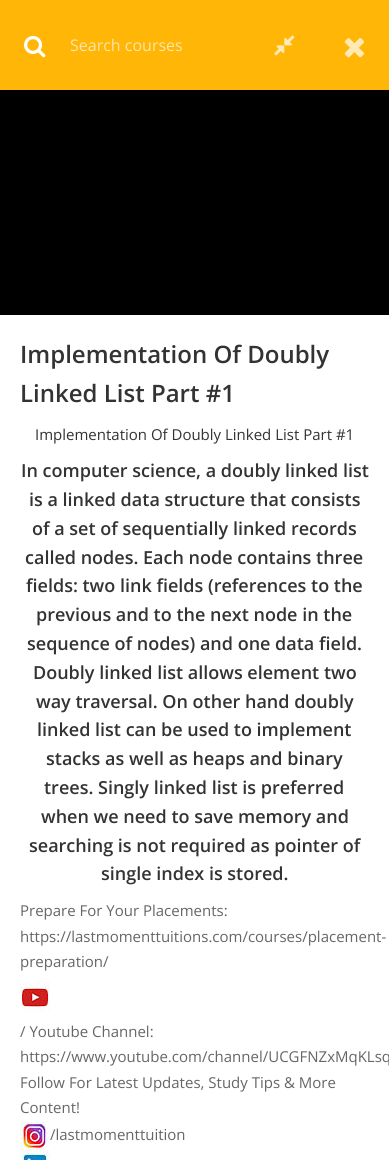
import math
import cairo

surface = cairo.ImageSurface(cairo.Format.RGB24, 389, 1160)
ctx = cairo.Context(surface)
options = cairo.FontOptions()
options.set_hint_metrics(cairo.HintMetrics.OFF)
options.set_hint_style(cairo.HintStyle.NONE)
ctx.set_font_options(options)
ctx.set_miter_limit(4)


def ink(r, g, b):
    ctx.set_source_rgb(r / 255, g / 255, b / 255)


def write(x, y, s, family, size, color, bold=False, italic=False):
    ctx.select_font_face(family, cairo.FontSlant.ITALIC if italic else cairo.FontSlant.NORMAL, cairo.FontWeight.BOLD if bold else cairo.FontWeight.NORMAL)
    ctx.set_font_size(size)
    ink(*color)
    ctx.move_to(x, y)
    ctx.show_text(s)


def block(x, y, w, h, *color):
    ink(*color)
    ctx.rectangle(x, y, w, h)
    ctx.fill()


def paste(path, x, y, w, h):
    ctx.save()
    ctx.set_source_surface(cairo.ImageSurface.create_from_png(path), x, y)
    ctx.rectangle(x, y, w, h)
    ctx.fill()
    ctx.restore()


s1 = dict(family="Open Sans", size=16, color=(255, 229, 168))
s2 = dict(family="Open Sans SemiBold", size=24, color=(51, 51, 51))
s3 = dict(family="Open Sans", size=15, color=(51, 51, 51))
s4 = dict(family="Open Sans SemiBold", size=18, color=(51, 51, 51))
s5 = dict(family="Open Sans", size=15, color=(102, 102, 102))

ink(255, 255, 255)
ctx.paint()
block(0, 0, 389, 90, 255, 182, 6)
paste("pic1.png", 24, 35, 22, 23)
write(70, 51, "Search courses", **s1)
paste("pic2.png", 274, 35, 21, 21)
paste("pic3.png", 344, 38, 20, 20)
block(0, 90, 389, 225, 0, 0, 0)
write(20, 363, "Implementation Of Doubly", **s2)
write(20, 402, "Linked List Part #1", **s2)
write(35, 440, "Implementation Of Doubly Linked List Part #1", **s3)
write(21, 477, "In computer science, a doubly linked list", **s4)
write(29, 506, "is a linked data structure that consists", **s4)
write(32, 535, "of a set of sequentially linked records", **s4)
write(25, 564, "called nodes. Each node contains three", **s4)
write(26, 592, "fields: two link fields (references to the", **s4)
write(36, 621, "previous and to the next node in the", **s4)
write(27, 650, "sequence of nodes) and one data field.", **s4)
write(33, 679, "Doubly linked list allows element two", **s4)
write(36, 708, "way traversal. On other hand doubly", **s4)
write(37, 736, "linked list can be used to implement", **s4)
write(46, 765, "stacks as well as heaps and binary", **s4)
write(44, 794, "trees. Singly linked list is preferred", **s4)
write(41, 823, "when we need to save memory and", **s4)
write(29, 852, "searching is not required as pointer of", **s4)
write(101, 880, "single index is stored.", **s4)
write(20, 916, "Prepare For Your Placements:", **s5)
write(20, 942, "https://lastmomenttuitions.com/courses/placement-", **s5)
write(20, 967, "preparation/", **s5)
paste("pic4.png", 20, 982, 30, 30)
write(20, 1037, "/ Youtube Channel:", **s5)
write(20, 1062, "https://www.youtube.com/channel/UCGFNZxMqKLsq", **s5)
write(20, 1088, "Follow For Latest Updates, Study Tips & More", **s5)
write(20, 1113, "Content!", **s5)
paste("pic5.png", 20, 1121, 30, 30)
write(50, 1140, "/lastmomenttuition", **s5)
paste("pic6.png", 20, 1151, 30, 9)
surface.write_to_png("screenshot.png")
